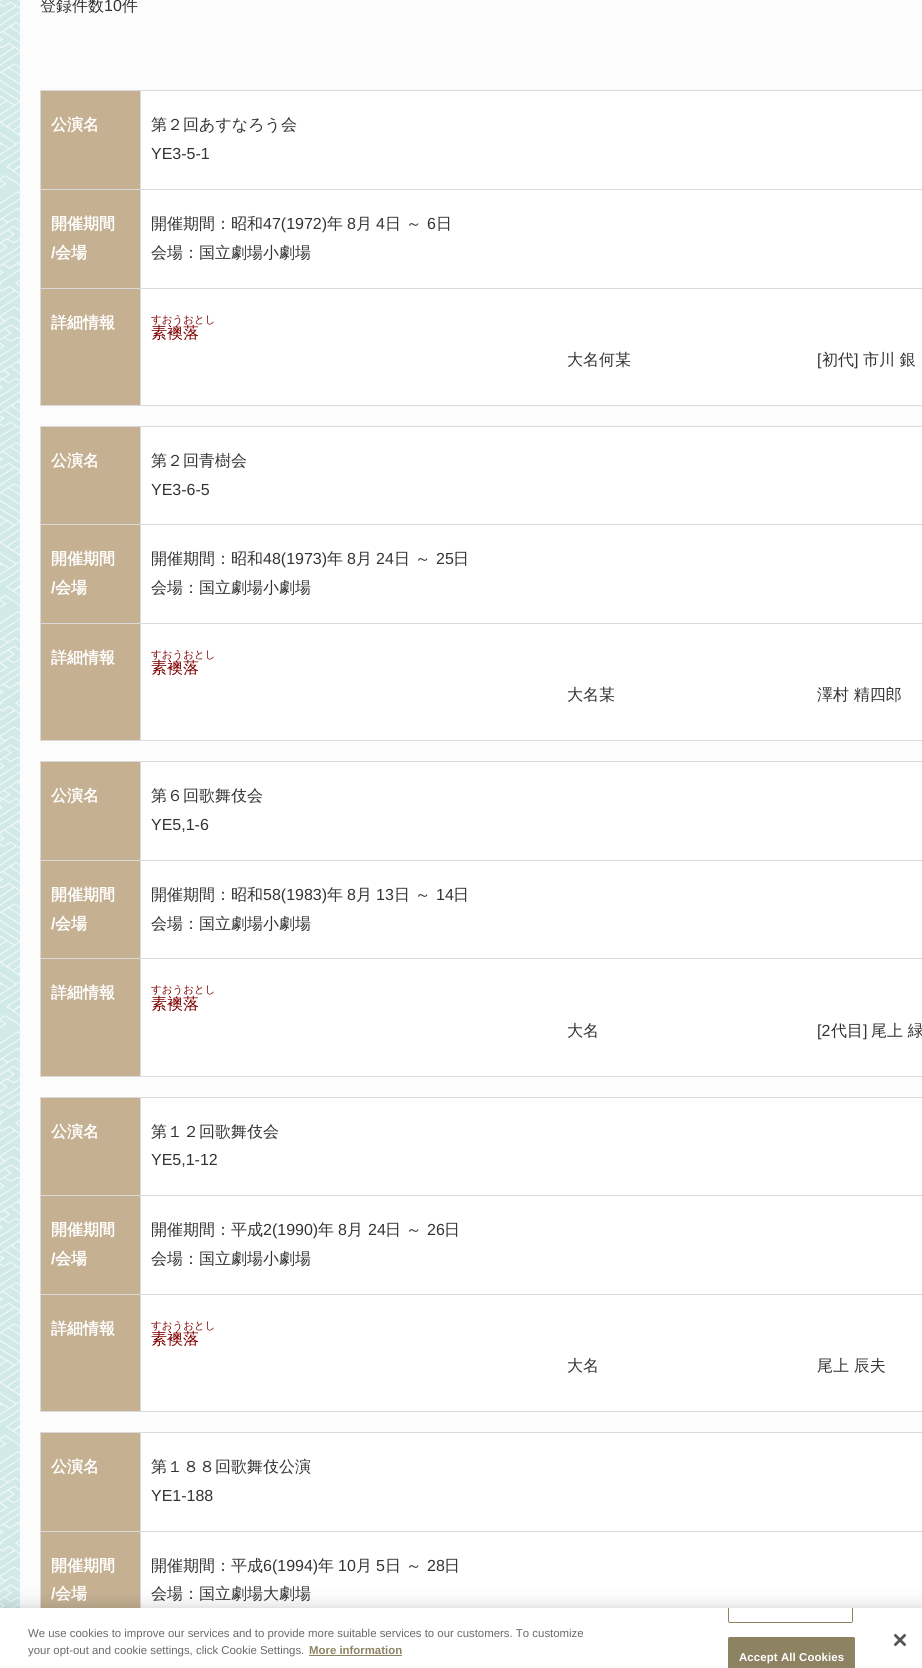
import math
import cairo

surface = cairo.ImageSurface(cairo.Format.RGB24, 922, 1668)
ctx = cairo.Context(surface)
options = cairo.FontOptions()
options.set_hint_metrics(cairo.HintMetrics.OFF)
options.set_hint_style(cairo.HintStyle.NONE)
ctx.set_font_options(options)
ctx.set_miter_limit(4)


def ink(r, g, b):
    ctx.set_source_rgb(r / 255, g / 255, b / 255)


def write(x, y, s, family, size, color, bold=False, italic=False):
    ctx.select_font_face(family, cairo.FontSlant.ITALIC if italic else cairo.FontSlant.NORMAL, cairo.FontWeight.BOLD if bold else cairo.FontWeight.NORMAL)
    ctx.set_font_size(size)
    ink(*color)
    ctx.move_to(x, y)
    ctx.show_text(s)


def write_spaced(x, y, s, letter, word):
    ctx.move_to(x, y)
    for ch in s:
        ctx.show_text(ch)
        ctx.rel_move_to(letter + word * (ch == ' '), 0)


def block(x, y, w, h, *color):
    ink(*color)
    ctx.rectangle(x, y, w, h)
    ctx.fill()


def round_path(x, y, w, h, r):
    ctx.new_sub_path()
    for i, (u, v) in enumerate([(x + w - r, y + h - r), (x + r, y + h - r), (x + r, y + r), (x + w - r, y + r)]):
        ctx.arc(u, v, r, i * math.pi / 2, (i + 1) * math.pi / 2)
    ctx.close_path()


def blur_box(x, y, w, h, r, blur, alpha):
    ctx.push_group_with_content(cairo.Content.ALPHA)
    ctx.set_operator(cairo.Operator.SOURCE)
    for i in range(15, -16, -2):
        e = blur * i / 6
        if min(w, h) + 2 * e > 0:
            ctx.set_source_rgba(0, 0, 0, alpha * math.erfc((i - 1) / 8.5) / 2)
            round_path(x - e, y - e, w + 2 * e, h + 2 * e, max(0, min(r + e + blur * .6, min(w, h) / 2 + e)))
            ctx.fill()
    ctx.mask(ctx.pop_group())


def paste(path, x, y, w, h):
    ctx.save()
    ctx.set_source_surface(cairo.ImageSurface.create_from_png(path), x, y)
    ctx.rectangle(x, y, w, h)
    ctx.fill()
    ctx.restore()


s1 = dict(family="WenQuanYi Zen Hei Medium", size=16, color=(51, 51, 51))
s2 = dict(family="Liberation Sans", size=16, color=(51, 51, 51))
s3 = dict(family="WenQuanYi Zen Hei", size=16, color=(255, 255, 255), bold=True)
s4 = dict(family="Liberation Sans", size=16, color=(255, 255, 255), bold=True)
s5 = dict(family="WenQuanYi Zen Hei Medium", size=10.5, color=(128, 0, 0))
s6 = dict(family="WenQuanYi Zen Hei Medium", size=16, color=(128, 0, 0))
s7 = dict(family="Liberation Sans", size=11.4, color=(105, 105, 105))
s8 = dict(family="Liberation Sans", size=11.4, color=(141, 131, 99), bold=True)

ink(255, 255, 255)
ctx.paint()
paste("pic1.png", 0, 0, 20, 1608)
block(20, 0, 902, 1608, 252, 252, 252)
write(40, 11, "登録件数", **s1)
write(104, 11, "10", **s2)
write(122, 11, "件", **s1)
block(41, 91, 99, 98, 197, 176, 146)
block(140, 90, 782, 1, 218, 218, 218)
block(140, 189, 782, 1, 218, 218, 218)
block(140, 288, 782, 1, 218, 218, 218)
block(140, 405, 782, 1, 218, 218, 218)
block(140, 288, 1, 118, 218, 218, 218)
block(40, 288, 101, 1, 218, 218, 218)
block(140, 189, 1, 100, 218, 218, 218)
block(40, 189, 101, 1, 218, 218, 218)
block(140, 90, 1, 100, 218, 218, 218)
block(40, 90, 101, 1, 218, 218, 218)
block(40, 405, 101, 1, 218, 218, 218)
block(40, 288, 1, 118, 218, 218, 218)
block(40, 189, 1, 100, 218, 218, 218)
block(40, 90, 1, 100, 218, 218, 218)
write(51, 130, "公演名", **s3)
block(141, 91, 781, 98, 255, 255, 255)
write(151, 130, "第２回あすなろう会", **s1)
write(151, 159, "YE3-5-1", **s2)
block(41, 190, 99, 98, 197, 176, 146)
write(51, 229, "開催期間", **s3)
write(51, 258, "/", **s4)
write(55, 258, "会場", **s3)
block(141, 190, 781, 98, 255, 255, 255)
write(151, 229, "開催期間：昭和", **s1)
write(263, 229, "47(1972)", **s2)
write(327, 229, "年", **s1)
write(347, 229, "8", **s2)
write(356, 229, "月", **s1)
write(376, 229, "4", **s2)
write(385, 229, "日 ～", **s1)
write(427, 229, "6", **s2)
write(436, 229, "日", **s1)
write(151, 258, "会場：国立劇場小劇場", **s1)
block(41, 289, 99, 116, 197, 176, 146)
write(51, 328, "詳細情報", **s3)
block(141, 289, 781, 116, 255, 255, 255)
write(151, 323, "すおうおとし", **s5)
write(151, 338, "素襖落", **s6)
write(567, 365, "大名何某", **s1)
write(817, 365, "[", **s2)
write(822, 365, "初代", **s1)
write(854, 365, "]", **s2)
write(863, 365, "市川 銀", **s1)
block(41, 427, 99, 97, 197, 176, 146)
block(140, 426, 782, 1, 218, 218, 218)
block(140, 524, 782, 1, 218, 218, 218)
block(140, 623, 782, 1, 218, 218, 218)
block(140, 740, 782, 1, 218, 218, 218)
block(140, 623, 1, 118, 218, 218, 218)
block(40, 623, 101, 1, 218, 218, 218)
block(140, 524, 1, 100, 218, 218, 218)
block(40, 524, 101, 1, 218, 218, 218)
block(140, 426, 1, 99, 218, 218, 218)
block(40, 426, 101, 1, 218, 218, 218)
block(40, 740, 101, 1, 218, 218, 218)
block(40, 623, 1, 118, 218, 218, 218)
block(40, 524, 1, 100, 218, 218, 218)
block(40, 426, 1, 99, 218, 218, 218)
write(51, 466, "公演名", **s3)
block(141, 427, 781, 97, 255, 255, 255)
write(151, 466, "第２回青樹会", **s1)
write(151, 495, "YE3-6-5", **s2)
block(41, 525, 99, 98, 197, 176, 146)
write(51, 564, "開催期間", **s3)
write(51, 593, "/", **s4)
write(55, 593, "会場", **s3)
block(141, 525, 781, 98, 255, 255, 255)
write(151, 564, "開催期間：昭和", **s1)
write(263, 564, "48(1973)", **s2)
write(327, 564, "年", **s1)
write(347, 564, "8", **s2)
write(356, 564, "月", **s1)
write(376, 564, "24", **s2)
write(394, 564, "日 ～", **s1)
write(436, 564, "25", **s2)
write(453, 564, "日", **s1)
write(151, 593, "会場：国立劇場小劇場", **s1)
block(41, 624, 99, 116, 197, 176, 146)
write(51, 663, "詳細情報", **s3)
block(141, 624, 781, 116, 255, 255, 255)
write(151, 658, "すおうおとし", **s5)
write(151, 673, "素襖落", **s6)
write(567, 700, "大名某", **s1)
write(817, 700, "澤村 精四郎", **s1)
block(41, 762, 99, 98, 197, 176, 146)
block(140, 761, 782, 1, 218, 218, 218)
block(140, 860, 782, 1, 218, 218, 218)
block(140, 958, 782, 1, 218, 218, 218)
block(140, 1076, 782, 1, 218, 218, 218)
block(140, 958, 1, 119, 218, 218, 218)
block(40, 958, 101, 1, 218, 218, 218)
block(140, 860, 1, 99, 218, 218, 218)
block(40, 860, 101, 1, 218, 218, 218)
block(140, 761, 1, 100, 218, 218, 218)
block(40, 761, 101, 1, 218, 218, 218)
block(40, 1076, 101, 1, 218, 218, 218)
block(40, 958, 1, 119, 218, 218, 218)
block(40, 860, 1, 99, 218, 218, 218)
block(40, 761, 1, 100, 218, 218, 218)
write(51, 801, "公演名", **s3)
block(141, 762, 781, 98, 255, 255, 255)
write(151, 801, "第６回歌舞伎会", **s1)
write(151, 830, "YE5,1-6", **s2)
block(41, 861, 99, 97, 197, 176, 146)
write(51, 900, "開催期間", **s3)
write(51, 929, "/", **s4)
write(55, 929, "会場", **s3)
block(141, 861, 781, 97, 255, 255, 255)
write(151, 900, "開催期間：昭和", **s1)
write(263, 900, "58(1983)", **s2)
write(327, 900, "年", **s1)
write(347, 900, "8", **s2)
write(356, 900, "月", **s1)
write(376, 900, "13", **s2)
write(394, 900, "日 ～", **s1)
write(436, 900, "14", **s2)
write(453, 900, "日", **s1)
write(151, 929, "会場：国立劇場小劇場", **s1)
block(41, 959, 99, 117, 197, 176, 146)
write(51, 998, "詳細情報", **s3)
block(141, 959, 781, 117, 255, 255, 255)
write(151, 993, "すおうおとし", **s5)
write(151, 1009, "素襖落", **s6)
write(567, 1036, "大名", **s1)
write(817, 1036, "[2", **s2)
write(831, 1036, "代目", **s1)
write(863, 1036, "]", **s2)
write(871, 1036, "尾上 緑", **s1)
block(41, 1098, 99, 97, 197, 176, 146)
block(140, 1097, 782, 1, 218, 218, 218)
block(140, 1195, 782, 1, 218, 218, 218)
block(140, 1294, 782, 1, 218, 218, 218)
block(140, 1411, 782, 1, 218, 218, 218)
block(140, 1294, 1, 118, 218, 218, 218)
block(40, 1294, 101, 1, 218, 218, 218)
block(140, 1195, 1, 100, 218, 218, 218)
block(40, 1195, 101, 1, 218, 218, 218)
block(140, 1097, 1, 99, 218, 218, 218)
block(40, 1097, 101, 1, 218, 218, 218)
block(40, 1411, 101, 1, 218, 218, 218)
block(40, 1294, 1, 118, 218, 218, 218)
block(40, 1195, 1, 100, 218, 218, 218)
block(40, 1097, 1, 99, 218, 218, 218)
write(51, 1137, "公演名", **s3)
block(141, 1098, 781, 97, 255, 255, 255)
write(151, 1137, "第１２回歌舞伎会", **s1)
write(151, 1165, "YE5,1-12", **s2)
block(41, 1196, 99, 98, 197, 176, 146)
write(51, 1235, "開催期間", **s3)
write(51, 1264, "/", **s4)
write(55, 1264, "会場", **s3)
block(141, 1196, 781, 98, 255, 255, 255)
write(151, 1235, "開催期間：平成", **s1)
write(263, 1235, "2(1990)", **s2)
write(318, 1235, "年", **s1)
write(338, 1235, "8", **s2)
write(347, 1235, "月", **s1)
write(368, 1235, "24", **s2)
write(385, 1235, "日 ～", **s1)
write(427, 1235, "26", **s2)
write(444, 1235, "日", **s1)
write(151, 1264, "会場：国立劇場小劇場", **s1)
block(41, 1295, 99, 116, 197, 176, 146)
write(51, 1334, "詳細情報", **s3)
block(141, 1295, 781, 116, 255, 255, 255)
write(151, 1329, "すおうおとし", **s5)
write(151, 1344, "素襖落", **s6)
write(567, 1371, "大名", **s1)
write(817, 1371, "尾上 辰夫", **s1)
block(41, 1433, 99, 98, 197, 176, 146)
block(140, 1432, 782, 1, 218, 218, 218)
block(140, 1531, 782, 1, 218, 218, 218)
block(140, 1531, 1, 77, 218, 218, 218)
block(40, 1531, 101, 1, 218, 218, 218)
block(140, 1432, 1, 100, 218, 218, 218)
block(40, 1432, 101, 1, 218, 218, 218)
block(40, 1531, 1, 77, 218, 218, 218)
block(40, 1432, 1, 100, 218, 218, 218)
write(51, 1472, "公演名", **s3)
block(141, 1433, 781, 98, 255, 255, 255)
write(151, 1472, "第１８８回歌舞伎公演", **s1)
write(151, 1501, "YE1-188", **s2)
block(41, 1532, 99, 76, 197, 176, 146)
write(51, 1571, "開催期間", **s3)
write(51, 1599, "/", **s4)
write(55, 1599, "会場", **s3)
block(141, 1532, 781, 76, 255, 255, 255)
write(151, 1571, "開催期間：平成", **s1)
write(263, 1571, "6(1994)", **s2)
write(318, 1571, "年", **s1)
write(338, 1571, "10", **s2)
write(356, 1571, "月", **s1)
write(376, 1571, "5", **s2)
write(385, 1571, "日 ～", **s1)
write(427, 1571, "28", **s2)
write(444, 1571, "日", **s1)
write(151, 1599, "会場：国立劇場大劇場", **s1)
ink(0, 0, 0)
blur_box(0, 1608, 922, 60, 0, 9, 0.2)
block(0, 1608, 922, 60, 255, 255, 255)
write(28, 1637, "We use cookies to improve our services and to provide more suitable services to our customers. To customize", **s7)
write(28, 1654, "your opt-out and cookie settings, click Cookie Settings.", **s7)
write(309, 1654, "More information", **s8)
block(309, 1655, 93, 1, 141, 131, 99)
ctx.save()
ctx.rectangle(0, 1608, 922, 60)
ctx.clip()
round_path(728.5, 1584.5, 124, 38, 1.5)
ctx.set_line_width(1)
ctx.stroke()
ctx.restore()
ctx.new_path()
ctx.move_to(730, 1637)
ctx.line_to(853, 1637)
ctx.curve_to(854, 1637, 855, 1638, 855, 1639)
ctx.line_to(855, 1668)
ctx.line_to(728, 1668)
ctx.line_to(728, 1639)
ctx.curve_to(728, 1638, 729, 1637, 730, 1637)
ctx.close_path()
ctx.fill()
round_path(728.5, 1637.5, 126, 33, 1.5)
ctx.set_line_width(1)
ctx.stroke()
ink(255, 255, 255)
write_spaced(739, 1661, "Accept All Cookies", 0.1, 0)
paste("pic2.png", 894, 1634, 12, 12)
surface.write_to_png("screenshot.png")
